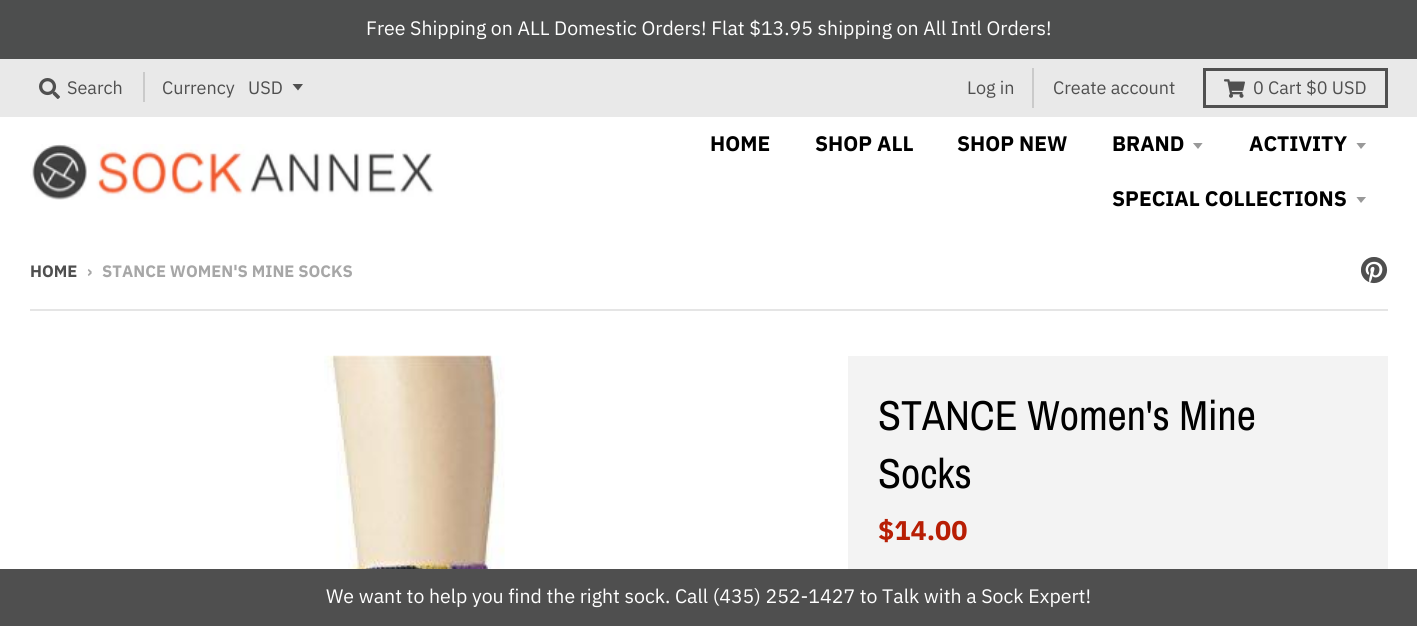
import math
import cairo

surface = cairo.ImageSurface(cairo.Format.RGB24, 1417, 626)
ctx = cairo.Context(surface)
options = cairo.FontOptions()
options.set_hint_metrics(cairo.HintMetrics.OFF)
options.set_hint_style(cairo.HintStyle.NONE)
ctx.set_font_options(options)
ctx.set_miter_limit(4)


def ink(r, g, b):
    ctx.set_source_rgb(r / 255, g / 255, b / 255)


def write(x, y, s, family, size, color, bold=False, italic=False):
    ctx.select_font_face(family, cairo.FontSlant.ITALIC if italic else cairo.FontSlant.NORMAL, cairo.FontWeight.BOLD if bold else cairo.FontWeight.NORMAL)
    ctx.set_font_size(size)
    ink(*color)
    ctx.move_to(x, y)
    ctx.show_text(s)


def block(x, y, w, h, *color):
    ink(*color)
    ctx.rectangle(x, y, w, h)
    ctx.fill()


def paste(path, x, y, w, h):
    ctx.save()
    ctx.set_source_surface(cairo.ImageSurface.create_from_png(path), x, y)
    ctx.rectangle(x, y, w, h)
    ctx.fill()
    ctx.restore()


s1 = dict(family="IBM Plex Sans", size=19.5, color=(255, 255, 255))
s2 = dict(family="IBM Plex Sans", size=18, color=(79, 79, 79))
s3 = dict(family="IBM Plex Sans", size=21, color=(0, 0, 0), bold=True)
s4 = dict(family="IBM Plex Sans", size=16.5, color=(79, 79, 79), bold=True)
s5 = dict(family="IBM Plex Sans", size=16.5, color=(167, 167, 167), bold=True)
s6 = dict(family="Archivo Narrow", size=42, color=(0, 0, 0))
s7 = dict(family="IBM Plex Sans", size=27, color=(184, 30, 4), bold=True)

ink(255, 255, 255)
ctx.paint()
block(0, 0, 1417, 59, 77, 78, 78)
write(366, 35, "Free Shipping on ALL Domestic Orders! Flat $13.95 shipping on All Intl Orders!", **s1)
block(0, 569, 1417, 57, 79, 79, 79)
write(326, 603, "We want to help you find the right sock. Call (435) 252-1427 to Talk with a Sock Expert!", **s1)
block(0, 59, 1417, 58, 233, 233, 233)
paste("pic1.png", 39, 78, 21, 21)
write(67, 94, "Search", **s2)
block(143, 72, 2, 30, 202, 202, 202)
write(162, 94, "Currency", **s2)
ink(80, 80, 80)
ctx.new_path()
ctx.move_to(292.5, 84)
ctx.line_to(298, 90.5)
ctx.line_to(303, 84)
ctx.close_path()
ctx.fill()
write(248, 94, "USD", **s2)
block(1032, 68, 2, 40, 202, 202, 202)
write(967, 94, "Log in", **s2)
write(1053, 94, "Create account", **s2)
ctx.rectangle(1204.5, 69.5, 182, 37)
ink(80, 80, 80)
ctx.set_line_width(3)
ctx.stroke()
paste("pic2.png", 1224, 79, 21, 19)
write(1253, 94, "0 Cart $0 USD", **s2)
paste("pic3.png", 30, 144, 404, 56)
write(710, 151, "HOME", **s3)
write(815, 151, "SHOP ALL", **s3)
write(957, 151, "SHOP NEW", **s3)
write(1112, 151, "BRAND", **s3)
ctx.save()
ctx.rectangle(1193, 143, 12, 7)
ctx.clip()
ink(153, 153, 153)
ctx.new_path()
ctx.move_to(1192.5, 142.5)
ctx.line_to(1198, 149)
ctx.line_to(1203, 142.5)
ctx.close_path()
ctx.fill()
ctx.restore()
write(1249, 151, "ACTIVITY", **s3)
ctx.save()
ctx.rectangle(1356, 143, 12, 7)
ctx.clip()
ink(153, 153, 153)
ctx.new_path()
ctx.move_to(1356, 142.5)
ctx.line_to(1361, 149)
ctx.line_to(1366.5, 142.5)
ctx.close_path()
ctx.fill()
ctx.restore()
write(1112, 206, "SPECIAL COLLECTIONS", **s3)
ctx.save()
ctx.rectangle(1356, 197, 12, 7)
ctx.clip()
ink(153, 153, 153)
ctx.new_path()
ctx.move_to(1356, 196.5)
ctx.line_to(1361, 203)
ctx.line_to(1366.5, 196.5)
ctx.close_path()
ctx.fill()
ctx.restore()
write(30, 277, "HOME", **s4)
write(87, 277, "›", **s5)
write(102, 277, "STANCE WOMEN'S MINE SOCKS", **s5)
paste("pic4.png", 1361, 257, 27, 27)
block(30, 309, 1358, 2, 229, 229, 229)
paste("pic5.png", 324, 355, 181, 214)
block(848, 356, 540, 213, 243, 243, 243)
write(878, 430, "STANCE Women's Mine", **s6)
write(878, 488, "Socks", **s6)
write(878, 540, "$14.00", **s7)
surface.write_to_png("screenshot.png")
